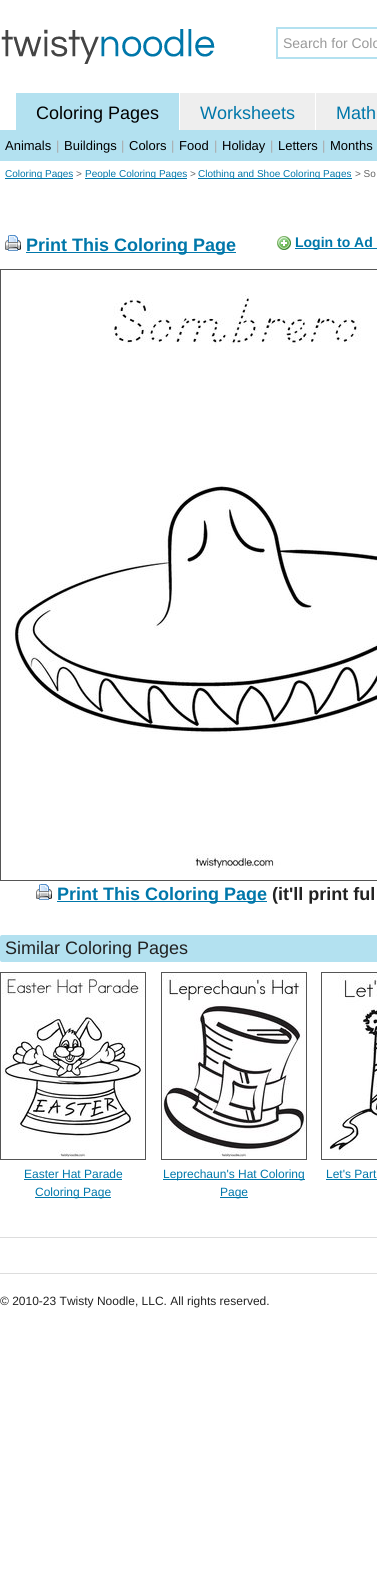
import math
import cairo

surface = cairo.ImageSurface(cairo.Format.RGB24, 377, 1585)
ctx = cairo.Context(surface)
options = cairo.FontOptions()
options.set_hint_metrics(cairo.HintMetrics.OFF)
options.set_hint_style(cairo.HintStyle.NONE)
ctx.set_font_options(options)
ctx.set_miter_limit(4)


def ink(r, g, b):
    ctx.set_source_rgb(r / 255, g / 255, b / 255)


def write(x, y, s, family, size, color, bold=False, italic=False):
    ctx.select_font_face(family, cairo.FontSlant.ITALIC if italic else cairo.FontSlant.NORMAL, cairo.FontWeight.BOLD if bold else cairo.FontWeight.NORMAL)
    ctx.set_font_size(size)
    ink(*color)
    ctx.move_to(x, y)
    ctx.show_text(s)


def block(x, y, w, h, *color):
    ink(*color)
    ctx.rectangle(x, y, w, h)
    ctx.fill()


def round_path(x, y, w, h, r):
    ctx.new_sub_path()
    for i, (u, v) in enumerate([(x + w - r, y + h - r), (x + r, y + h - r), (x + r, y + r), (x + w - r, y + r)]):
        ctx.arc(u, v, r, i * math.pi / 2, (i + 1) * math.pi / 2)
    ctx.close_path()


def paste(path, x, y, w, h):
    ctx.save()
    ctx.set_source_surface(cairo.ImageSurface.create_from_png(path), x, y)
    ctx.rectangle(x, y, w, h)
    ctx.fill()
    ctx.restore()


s1 = dict(family="Liberation Sans", size=14, color=(153, 153, 153))
s2 = dict(family="Liberation Sans", size=18, color=(0, 0, 0))
s3 = dict(family="Liberation Sans", size=18, color=(0, 119, 170))
s4 = dict(family="Liberation Sans", size=13, color=(0, 0, 0))
s5 = dict(family="Liberation Sans", size=13, color=(170, 170, 170))
s6 = dict(family="Liberation Sans", size=10, color=(0, 119, 170))
s7 = dict(family="Liberation Sans", size=10, color=(102, 102, 102))
s8 = dict(family="Liberation Sans", size=18, color=(0, 119, 170), bold=True)
s9 = dict(family="Liberation Sans", size=14, color=(0, 119, 170), bold=True)
s10 = dict(family="Liberation Sans", size=18, color=(34, 34, 34), bold=True)
s11 = dict(family="Liberation Sans", size=18, color=(34, 34, 34))
s12 = dict(family="Liberation Sans", size=12, color=(0, 119, 170))
s13 = dict(family="Liberation Sans", size=12, color=(34, 34, 34))

ink(255, 255, 255)
ctx.paint()
paste("pic1.png", 1, 29, 214, 35)
ctx.rectangle(277, 28, 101, 30)
ink(179, 225, 240)
ctx.stroke()
write(283, 48, "Search for Colo", **s1)
block(16, 93, 163, 37, 179, 225, 240)
write(36, 119, "Coloring Pages", **s2)
block(180, 93, 135, 37, 238, 238, 238)
write(200, 119, "Worksheets", **s3)
block(316, 93, 61, 37, 238, 238, 238)
write(336, 119, "Math", **s3)
block(0, 130, 377, 31, 179, 225, 240)
write(5, 150, "Animals", **s4)
write(56, 150, "|", **s5)
write(64, 150, "Buildings", **s4)
write(121, 150, "|", **s5)
write(129, 150, "Colors", **s4)
write(171, 150, "|", **s5)
write(179, 150, "Food", **s4)
write(214, 150, "|", **s5)
write(222, 150, "Holiday", **s4)
write(270, 150, "|", **s5)
write(278, 150, "Letters", **s4)
write(322, 150, "|", **s5)
write(330, 150, "Months", **s4)
block(5, 178, 68, 1, 0, 119, 170)
write(5, 177, "Coloring Pages", **s6)
write(76, 177, ">", **s7)
block(85, 178, 102, 1, 0, 119, 170)
write(85, 177, "People Coloring Pages", **s6)
write(190, 177, ">", **s7)
block(198, 178, 154, 1, 0, 119, 170)
write(198, 177, "Clothing and Shoe Coloring Pages", **s6)
write(355, 177, "> So", **s7)
paste("pic2.png", 5, 235, 16, 16)
block(26, 252, 210, 1, 0, 119, 170)
write(26, 251, "Print This Coloring Page", **s8)
paste("pic3.png", 277, 236, 14, 14)
block(295, 248, 82, 1, 0, 119, 170)
write(295, 247, "Login to Ad", **s9)
ctx.rectangle(0.5, 269.5, 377, 611)
ink(85, 85, 85)
ctx.set_line_width(1)
ctx.stroke()
paste("pic4.png", 10, 294, 367, 576)
paste("pic2.png", 36, 884, 16, 16)
block(57, 901, 210, 1, 0, 119, 170)
write(57, 900, "Print This Coloring Page", **s8)
write(272, 900, "(it'll print ful", **s10)
ink(179, 225, 240)
round_path(0, 935, 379, 27, 2)
ctx.fill()
write(5, 954, "Similar Coloring Pages", **s11)
ctx.rectangle(0.5, 972.5, 145, 187)
ink(85, 85, 85)
ctx.stroke()
paste("pic5.png", 2, 973, 143, 184)
write(24, 1178, "Easter Hat Parade", **s12)
block(24, 1179, 98, 1, 0, 119, 170)
block(35, 1197, 76, 1, 0, 119, 170)
write(35, 1196, "Coloring Page", **s12)
ctx.rectangle(161.5, 972.5, 145, 187)
ink(85, 85, 85)
ctx.stroke()
paste("pic6.png", 162, 973, 144, 184)
block(163, 1179, 142, 1, 0, 119, 170)
write(163, 1178, "Leprechaun's Hat Coloring", **s12)
block(220, 1197, 28, 1, 0, 119, 170)
write(220, 1196, "Page", **s12)
ctx.rectangle(321.5, 972.5, 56, 187)
ink(85, 85, 85)
ctx.stroke()
paste("pic7.png", 329, 973, 48, 183)
write(326, 1178, "Let's Part", **s12)
block(326, 1179, 51, 1, 0, 119, 170)
block(0, 1237, 377, 1, 221, 221, 221)
block(0, 1273, 377, 1, 221, 221, 221)
write(0, 1305, "© 2010-23 Twisty Noodle, LLC. All rights reserved.", **s13)
surface.write_to_png("screenshot.png")
